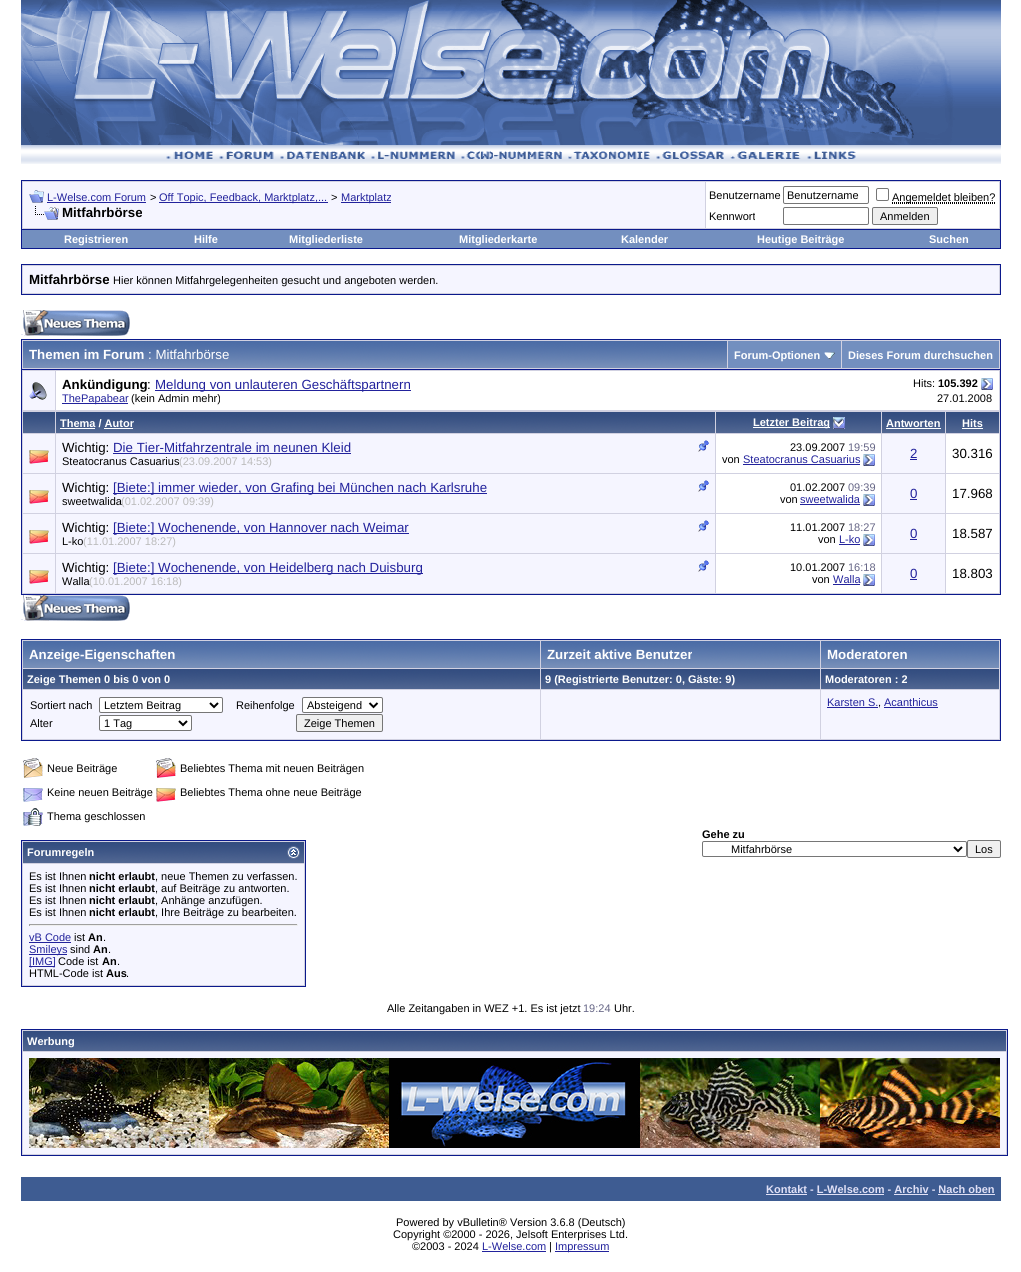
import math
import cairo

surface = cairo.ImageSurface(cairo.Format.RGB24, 1021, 1272)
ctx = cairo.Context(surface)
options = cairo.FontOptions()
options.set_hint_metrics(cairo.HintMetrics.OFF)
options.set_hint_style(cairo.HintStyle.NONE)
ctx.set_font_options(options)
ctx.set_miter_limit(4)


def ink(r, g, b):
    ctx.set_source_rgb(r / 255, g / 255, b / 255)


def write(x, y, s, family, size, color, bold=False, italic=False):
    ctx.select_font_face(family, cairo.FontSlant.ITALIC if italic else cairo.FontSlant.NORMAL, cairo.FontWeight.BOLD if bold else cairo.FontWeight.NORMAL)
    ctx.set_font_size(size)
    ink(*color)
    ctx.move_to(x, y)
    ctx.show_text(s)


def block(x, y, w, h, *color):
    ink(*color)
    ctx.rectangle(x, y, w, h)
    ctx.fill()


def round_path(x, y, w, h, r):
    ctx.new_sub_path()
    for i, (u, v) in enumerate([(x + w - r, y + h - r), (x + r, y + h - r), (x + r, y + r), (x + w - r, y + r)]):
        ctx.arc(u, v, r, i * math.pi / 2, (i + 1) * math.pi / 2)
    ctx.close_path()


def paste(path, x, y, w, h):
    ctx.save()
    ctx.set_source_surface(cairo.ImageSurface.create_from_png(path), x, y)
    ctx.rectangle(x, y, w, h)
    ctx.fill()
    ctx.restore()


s1 = dict(family="Liberation Sans", size=11, color=(34, 34, 156))
s2 = dict(family="Liberation Sans", size=11, color=(0, 0, 0))
s3 = dict(family="Liberation Sans", size=13.3, color=(0, 0, 0), bold=True)
s4 = dict(family="Liberation Sans", size=11, color=(255, 255, 255), bold=True)
s5 = dict(family="Liberation Sans", size=13.3, color=(255, 255, 255), bold=True)
s6 = dict(family="Liberation Sans", size=13.3, color=(255, 255, 255))
s7 = dict(family="Liberation Sans", size=13.3, color=(0, 0, 0))
s8 = dict(family="Liberation Sans", size=13.3, color=(34, 34, 156))
s9 = dict(family="Liberation Sans", size=11, color=(0, 0, 0), bold=True)
s10 = dict(family="Liberation Sans", size=11, color=(187, 187, 187))
s11 = dict(family="Liberation Sans", size=11, color=(102, 102, 134))
s12 = dict(family="Liberation Sans", size=11, color=(224, 224, 246), bold=True)

ink(255, 255, 255)
ctx.paint()
paste("pic1.png", 21, 0, 980, 145)
paste("pic2.png", 21, 145, 980, 19)
paste("pic3.png", 166, 151, 47, 8)
paste("pic4.png", 219, 151, 55, 8)
paste("pic5.png", 280, 151, 85, 8)
paste("pic6.png", 371, 151, 84, 8)
paste("pic7.png", 461, 151, 101, 8)
paste("pic8.png", 568, 151, 82, 8)
paste("pic9.png", 656, 151, 68, 8)
paste("pic10.png", 730, 151, 71, 8)
paste("pic11.png", 807, 151, 49, 8)
ink(209, 209, 225)
ctx.rectangle(21.5, 180.5, 979, 49)
ctx.fill_preserve()
ink(11, 25, 140)
ctx.set_line_width(1)
ctx.stroke()
block(23, 182, 682, 46, 245, 245, 255)
paste("pic12.png", 29, 190, 15, 13)
write(47, 201, "L-Welse.com Forum", **s1)
block(47, 202, 99, 1, 34, 34, 156)
write(150, 201, ">", **s2)
block(159, 202, 169, 1, 34, 34, 156)
write(159, 201, "Off Topic, Feedback, Marktplatz,...", **s1)
write(331, 201, ">", **s2)
block(341, 202, 50, 1, 34, 34, 156)
write(341, 201, "Marktplatz", **s1)
paste("pic13.png", 35, 206, 24, 14)
write(62, 217, "Mitfahrbörse", **s3)
block(706, 182, 293, 46, 255, 255, 255)
write(709, 199, "Benutzername", **s2)
round_path(783.5, 186.5, 85, 17, 1.5)
ink(118, 118, 118)
ctx.stroke()
write(787, 199, "Benutzername", **s2)
round_path(876.5, 188.5, 12, 12, 1.5)
ink(118, 118, 118)
ctx.stroke()
ctx.new_path()
ctx.move_to(892, 203.5)
ctx.line_to(996, 203.5)
ink(0, 0, 0)
ctx.set_dash([1, 1])
ctx.stroke()
ctx.new_path()
ctx.move_to(892, 202.5)
ctx.line_to(995.5, 202.5)
ctx.stroke()
write(892, 201, "Angemeldet bleiben?", **s2)
write(709, 220, "Kennwort", **s2)
round_path(783.5, 207.5, 85, 17, 1.5)
ink(118, 118, 118)
ctx.set_dash([])
ctx.stroke()
ink(239, 239, 239)
round_path(872.5, 207.5, 65, 17, 1.5)
ctx.fill_preserve()
ink(118, 118, 118)
ctx.stroke()
write(880, 220, "Anmelden", **s2)
block(1000, 230, 1, 19, 11, 25, 140)
block(21, 248, 980, 1, 11, 25, 140)
block(21, 230, 1, 19, 11, 25, 140)
block(22, 230, 978, 18, 115, 143, 191)
write(64, 243, "Registrieren", **s4)
write(194, 243, "Hilfe", **s4)
write(289, 243, "Mitgliederliste", **s4)
write(459, 243, "Mitgliederkarte", **s4)
write(621, 243, "Kalender", **s4)
write(757, 243, "Heutige Beiträge", **s4)
write(929, 243, "Suchen", **s4)
ink(209, 209, 225)
ctx.rectangle(21.5, 264.5, 979, 30)
ctx.fill_preserve()
ink(11, 25, 140)
ctx.stroke()
block(23, 266, 976, 27, 245, 245, 255)
write(29, 284, "Mitfahrbörse", **s3)
write(113, 284, "Hier können Mitfahrgelegenheiten gesucht und angeboten werden.", **s2)
paste("pic14.png", 21, 310, 109, 26)
block(22, 340, 978, 29, 209, 209, 225)
block(21, 339, 980, 1, 11, 25, 140)
block(1000, 339, 1, 30, 11, 25, 140)
block(21, 339, 1, 30, 11, 25, 140)
paste("pic15.png", 23, 341, 704, 27)
write(29, 359, "Themen im Forum", **s5)
write(148, 359, ": Mitfahrbörse", **s6)
block(728, 341, 113, 27, 115, 143, 191)
write(734, 359, "Forum-Optionen", **s4)
paste("pic16.png", 824, 352, 11, 7)
block(842, 341, 157, 27, 115, 143, 191)
write(848, 359, "Dieses Forum durchsuchen", **s4)
ink(209, 209, 225)
ctx.rectangle(21.5, 369.5, 979, 225)
ctx.fill_preserve()
ink(11, 25, 140)
ctx.stroke()
block(23, 371, 32, 39, 245, 245, 255)
paste("pic17.png", 29, 382, 18, 18)
block(56, 371, 943, 39, 255, 255, 255)
write(62, 389, "Ankündigung", **s3)
write(147, 389, ":", **s7)
block(155, 390, 256, 1, 34, 34, 156)
write(155, 389, "Meldung von unlauteren Geschäftspartnern", **s8)
write(913, 387, "Hits:", **s2)
write(938, 387, "105.392", **s9)
paste("pic18.png", 981, 378, 12, 12)
block(62, 403, 66, 1, 34, 34, 156)
write(62, 402, "ThePapabear", **s1)
write(131, 402, "(kein Admin mehr)", **s2)
write(937, 402, "27.01.2008", **s2)
paste("pic19.png", 23, 412, 32, 21)
paste("pic20.png", 56, 412, 659, 21)
write(60, 427, "Thema / Autor", **s4)
block(60, 428, 35, 1, 255, 255, 255)
block(104, 428, 29, 1, 255, 255, 255)
paste("pic21.png", 716, 412, 165, 21)
block(753, 427, 77, 1, 255, 255, 255)
write(753, 426, "Letzter Beitrag", **s4)
paste("pic22.png", 833, 417, 12, 12)
paste("pic23.png", 882, 412, 63, 21)
write(886, 427, "Antworten", **s4)
block(886, 428, 55, 1, 255, 255, 255)
paste("pic24.png", 946, 412, 53, 21)
write(962, 427, "Hits", **s4)
block(962, 428, 21, 1, 255, 255, 255)
block(23, 434, 32, 39, 245, 245, 255)
paste("pic25.png", 29, 450, 20, 14)
block(56, 434, 659, 39, 245, 245, 255)
write(62, 452, "Wichtig:", **s7)
write(113, 452, "Die Tier-Mitfahrzentrale im neunen Kleid", **s8)
block(113, 453, 238, 1, 34, 34, 156)
paste("pic26.png", 698, 440, 11, 12)
write(62, 465, "Steatocranus Casuarius", **s2)
write(179, 465, "(23.09.2007 14:53)", **s10)
block(716, 434, 165, 39, 255, 255, 255)
write(790, 451, "23.09.2007", **s2)
write(848, 451, "19:59", **s11)
write(722, 463, "von", **s2)
write(743, 463, "Steatocranus Casuarius", **s1)
block(743, 464, 117, 1, 34, 34, 156)
paste("pic18.png", 863, 454, 12, 12)
block(882, 434, 63, 39, 245, 245, 255)
write(910, 458, "2", **s8)
block(910, 459, 7, 1, 34, 34, 156)
block(946, 434, 53, 39, 255, 255, 255)
write(952, 458, "30.316", **s7)
block(23, 474, 32, 39, 245, 245, 255)
paste("pic25.png", 29, 490, 20, 14)
block(56, 474, 659, 39, 245, 245, 255)
write(62, 492, "Wichtig:", **s7)
block(113, 493, 374, 1, 34, 34, 156)
write(113, 492, "[Biete:] immer wieder, von Grafing bei München nach Karlsruhe", **s8)
paste("pic26.png", 698, 480, 11, 12)
write(62, 505, "sweetwalida", **s2)
write(121, 505, "(01.02.2007 09:39)", **s10)
block(716, 474, 165, 39, 255, 255, 255)
write(790, 491, "01.02.2007", **s2)
write(848, 491, "09:39", **s11)
write(780, 503, "von", **s2)
write(800, 503, "sweetwalida", **s1)
block(800, 504, 60, 1, 34, 34, 156)
paste("pic18.png", 863, 494, 12, 12)
block(882, 474, 63, 39, 245, 245, 255)
write(910, 498, "0", **s8)
block(910, 499, 7, 1, 34, 34, 156)
block(946, 474, 53, 39, 255, 255, 255)
write(952, 498, "17.968", **s7)
block(23, 514, 32, 39, 245, 245, 255)
paste("pic25.png", 29, 530, 20, 14)
block(56, 514, 659, 39, 245, 245, 255)
write(62, 532, "Wichtig:", **s7)
block(113, 533, 296, 1, 34, 34, 156)
write(113, 532, "[Biete:] Wochenende, von Hannover nach Weimar", **s8)
paste("pic26.png", 698, 520, 11, 12)
write(62, 545, "L-ko", **s2)
write(83, 545, "(11.01.2007 18:27)", **s10)
block(716, 514, 165, 39, 255, 255, 255)
write(790, 531, "11.01.2007", **s2)
write(848, 531, "18:27", **s11)
write(818, 543, "von", **s2)
write(839, 543, "L-ko", **s1)
block(839, 544, 21, 1, 34, 34, 156)
paste("pic18.png", 863, 534, 12, 12)
block(882, 514, 63, 39, 245, 245, 255)
write(910, 538, "0", **s8)
block(910, 539, 7, 1, 34, 34, 156)
block(946, 514, 53, 39, 255, 255, 255)
write(952, 538, "18.587", **s7)
block(23, 554, 32, 39, 245, 245, 255)
paste("pic25.png", 29, 570, 20, 14)
block(56, 554, 659, 39, 245, 245, 255)
write(62, 572, "Wichtig:", **s7)
block(113, 573, 310, 1, 34, 34, 156)
write(113, 572, "[Biete:] Wochenende, von Heidelberg nach Duisburg", **s8)
paste("pic26.png", 698, 560, 11, 12)
write(62, 585, "Walla", **s2)
write(89, 585, "(10.01.2007 16:18)", **s10)
block(716, 554, 165, 39, 255, 255, 255)
write(790, 571, "10.01.2007", **s2)
write(848, 571, "16:18", **s11)
write(812, 583, "von", **s2)
write(833, 583, "Walla", **s1)
block(833, 584, 27, 1, 34, 34, 156)
paste("pic18.png", 863, 574, 12, 12)
block(882, 554, 63, 39, 245, 245, 255)
write(910, 578, "0", **s8)
block(910, 579, 7, 1, 34, 34, 156)
block(946, 554, 53, 39, 255, 255, 255)
write(952, 578, "18.803", **s7)
paste("pic14.png", 21, 595, 109, 26)
ink(209, 209, 225)
ctx.rectangle(21.5, 639.5, 979, 101)
ctx.fill_preserve()
ink(11, 25, 140)
ctx.stroke()
paste("pic27.png", 23, 641, 517, 27)
write(29, 659, "Anzeige-Eigenschaften", **s5)
paste("pic28.png", 541, 641, 279, 27)
write(547, 659, "Zurzeit aktive Benutzer", **s5)
paste("pic29.png", 821, 641, 178, 27)
write(827, 659, "Moderatoren", **s5)
paste("pic30.png", 23, 669, 517, 20)
write(27, 683, "Zeige Themen 0 bis 0 von 0", **s4)
paste("pic31.png", 541, 669, 279, 20)
write(545, 683, "9 (Registrierte Benutzer: 0, Gäste: 9)", **s4)
paste("pic32.png", 821, 669, 178, 20)
write(825, 683, "Moderatoren : 2", **s4)
block(23, 690, 517, 49, 245, 245, 255)
write(30, 709, "Sortiert nach", **s2)
ink(255, 255, 255)
round_path(99.5, 697.5, 123, 15, 1.5)
ctx.fill_preserve()
ink(118, 118, 118)
ctx.stroke()
ctx.new_path()
ctx.move_to(210, 703)
ctx.line_to(214, 707)
ctx.line_to(218, 703)
ink(0, 0, 0)
ctx.set_line_width(2)
ctx.stroke()
write(104, 709, "Letztem Beitrag", **s2)
write(236, 709, "Reihenfolge", **s2)
ink(255, 255, 255)
round_path(302.5, 697.5, 80, 15, 1.5)
ctx.fill_preserve()
ink(118, 118, 118)
ctx.set_line_width(1)
ctx.stroke()
ctx.new_path()
ctx.move_to(369.5, 703)
ctx.line_to(373.5, 707)
ctx.line_to(377.5, 703)
ink(0, 0, 0)
ctx.set_line_width(2)
ctx.stroke()
write(307, 709, "Absteigend", **s2)
write(30, 727, "Alter", **s2)
ink(255, 255, 255)
round_path(99.5, 715.5, 92, 15, 1.5)
ctx.fill_preserve()
ink(118, 118, 118)
ctx.set_line_width(1)
ctx.stroke()
ctx.new_path()
ctx.move_to(179, 721)
ctx.line_to(183, 725)
ctx.line_to(187, 721)
ink(0, 0, 0)
ctx.set_line_width(2)
ctx.stroke()
write(104, 727, "1 Tag", **s2)
ink(239, 239, 239)
round_path(296.5, 714.5, 86, 17, 1.5)
ctx.fill_preserve()
ink(118, 118, 118)
ctx.set_line_width(1)
ctx.stroke()
write(304, 727, "Zeige Themen", **s2)
block(541, 690, 279, 49, 245, 245, 255)
block(821, 690, 178, 49, 245, 245, 255)
write(827, 706, "Karsten S.", **s1)
block(827, 707, 51, 1, 34, 34, 156)
write(878, 706, ",", **s2)
write(884, 706, "Acanthicus", **s1)
block(884, 707, 54, 1, 34, 34, 156)
paste("pic33.png", 23, 758, 20, 20)
write(47, 772, "Neue Beiträge", **s2)
paste("pic34.png", 156, 758, 20, 20)
write(180, 772, "Beliebtes Thema mit neuen Beiträgen", **s2)
paste("pic35.png", 23, 788, 20, 14)
write(47, 796, "Keine neuen Beiträge", **s2)
paste("pic36.png", 156, 788, 20, 14)
write(180, 796, "Beliebtes Thema ohne neue Beiträge", **s2)
paste("pic37.png", 23, 808, 20, 18)
write(47, 820, "Thema geschlossen", **s2)
write(702, 838, "Gehe zu", **s9)
round_path(702.5, 841.5, 264, 15, 1.5)
ink(118, 118, 118)
ctx.stroke()
ctx.new_path()
ctx.move_to(954, 847)
ctx.line_to(958, 851)
ctx.line_to(962, 847)
ink(0, 0, 0)
ctx.set_line_width(2)
ctx.stroke()
write(731, 853, "Mitfahrbörse", **s2)
ink(239, 239, 239)
round_path(967.5, 840.5, 33, 17, 1.5)
ctx.fill_preserve()
ink(118, 118, 118)
ctx.set_line_width(1)
ctx.stroke()
write(975, 853, "Los", **s2)
ink(209, 209, 225)
ctx.rectangle(21.5, 840.5, 284, 146)
ctx.fill_preserve()
ink(11, 25, 140)
ctx.stroke()
paste("pic38.png", 23, 842, 281, 21)
write(27, 856, "Forumregeln", **s4)
paste("pic39.png", 287, 846, 13, 13)
block(23, 864, 281, 121, 245, 245, 255)
write(29, 880, "Es ist Ihnen", **s2)
write(89, 880, "nicht erlaubt", **s9)
write(155, 880, ", neue Themen zu verfassen.", **s2)
write(29, 892, "Es ist Ihnen", **s2)
write(89, 892, "nicht erlaubt", **s9)
write(155, 892, ", auf Beiträge zu antworten.", **s2)
write(29, 904, "Es ist Ihnen", **s2)
write(89, 904, "nicht erlaubt", **s9)
write(155, 904, ", Anhänge anzufügen.", **s2)
write(29, 916, "Es ist Ihnen", **s2)
write(89, 916, "nicht erlaubt", **s9)
write(155, 916, ", Ihre Beiträge zu bearbeiten.", **s2)
block(29, 924, 269, 1, 159, 159, 159)
block(297, 924, 1, 2, 238, 238, 238)
block(29, 925, 269, 1, 238, 238, 238)
block(29, 924, 1, 2, 159, 159, 159)
write(29, 941, "vB Code", **s1)
block(29, 942, 42, 1, 34, 34, 156)
write(74, 941, "ist", **s2)
write(88, 941, "An", **s9)
write(103, 941, ".", **s2)
block(29, 954, 38, 1, 34, 34, 156)
write(29, 953, "Smileys", **s1)
write(70, 953, "sind", **s2)
write(93, 953, "An", **s9)
write(108, 953, ".", **s2)
block(29, 966, 26, 1, 34, 34, 156)
write(29, 965, "[IMG]", **s1)
write(58, 965, "Code ist", **s2)
write(102, 965, "An", **s9)
write(117, 965, ".", **s2)
write(29, 977, "HTML-Code ist", **s2)
write(106, 977, "Aus", **s9)
write(126, 977, ".", **s2)
write(387, 1012, "Alle Zeitangaben in WEZ +1. Es ist jetzt", **s2)
write(583, 1012, "19:24", **s11)
write(614, 1012, "Uhr.", **s2)
ink(209, 209, 225)
ctx.rectangle(21.5, 1029.5, 986, 126)
ctx.fill_preserve()
ink(11, 25, 140)
ctx.stroke()
paste("pic40.png", 23, 1031, 983, 20)
write(27, 1045, "Werbung", **s4)
block(23, 1052, 983, 102, 245, 245, 255)
paste("pic41.png", 29, 1058, 971, 90)
block(21, 1177, 980, 24, 62, 92, 146)
write(766, 1193, "Kontakt - L-Welse.com - Archiv - Nach oben", **s12)
block(766, 1194, 41, 1, 224, 224, 246)
block(817, 1194, 67, 1, 224, 224, 246)
block(894, 1194, 34, 1, 224, 224, 246)
block(938, 1194, 57, 1, 224, 224, 246)
write(396, 1226, "Powered by vBulletin® Version 3.6.8 (Deutsch)", **s2)
write(393, 1238, "Copyright ©2000 - 2026, Jelsoft Enterprises Ltd.", **s2)
write(412, 1250, "©2003 - 2024", **s2)
write(482, 1250, "L-Welse.com", **s1)
block(482, 1251, 64, 1, 34, 34, 156)
write(549, 1250, "|", **s2)
block(555, 1251, 54, 1, 34, 34, 156)
write(555, 1250, "Impressum", **s1)
surface.write_to_png("screenshot.png")
